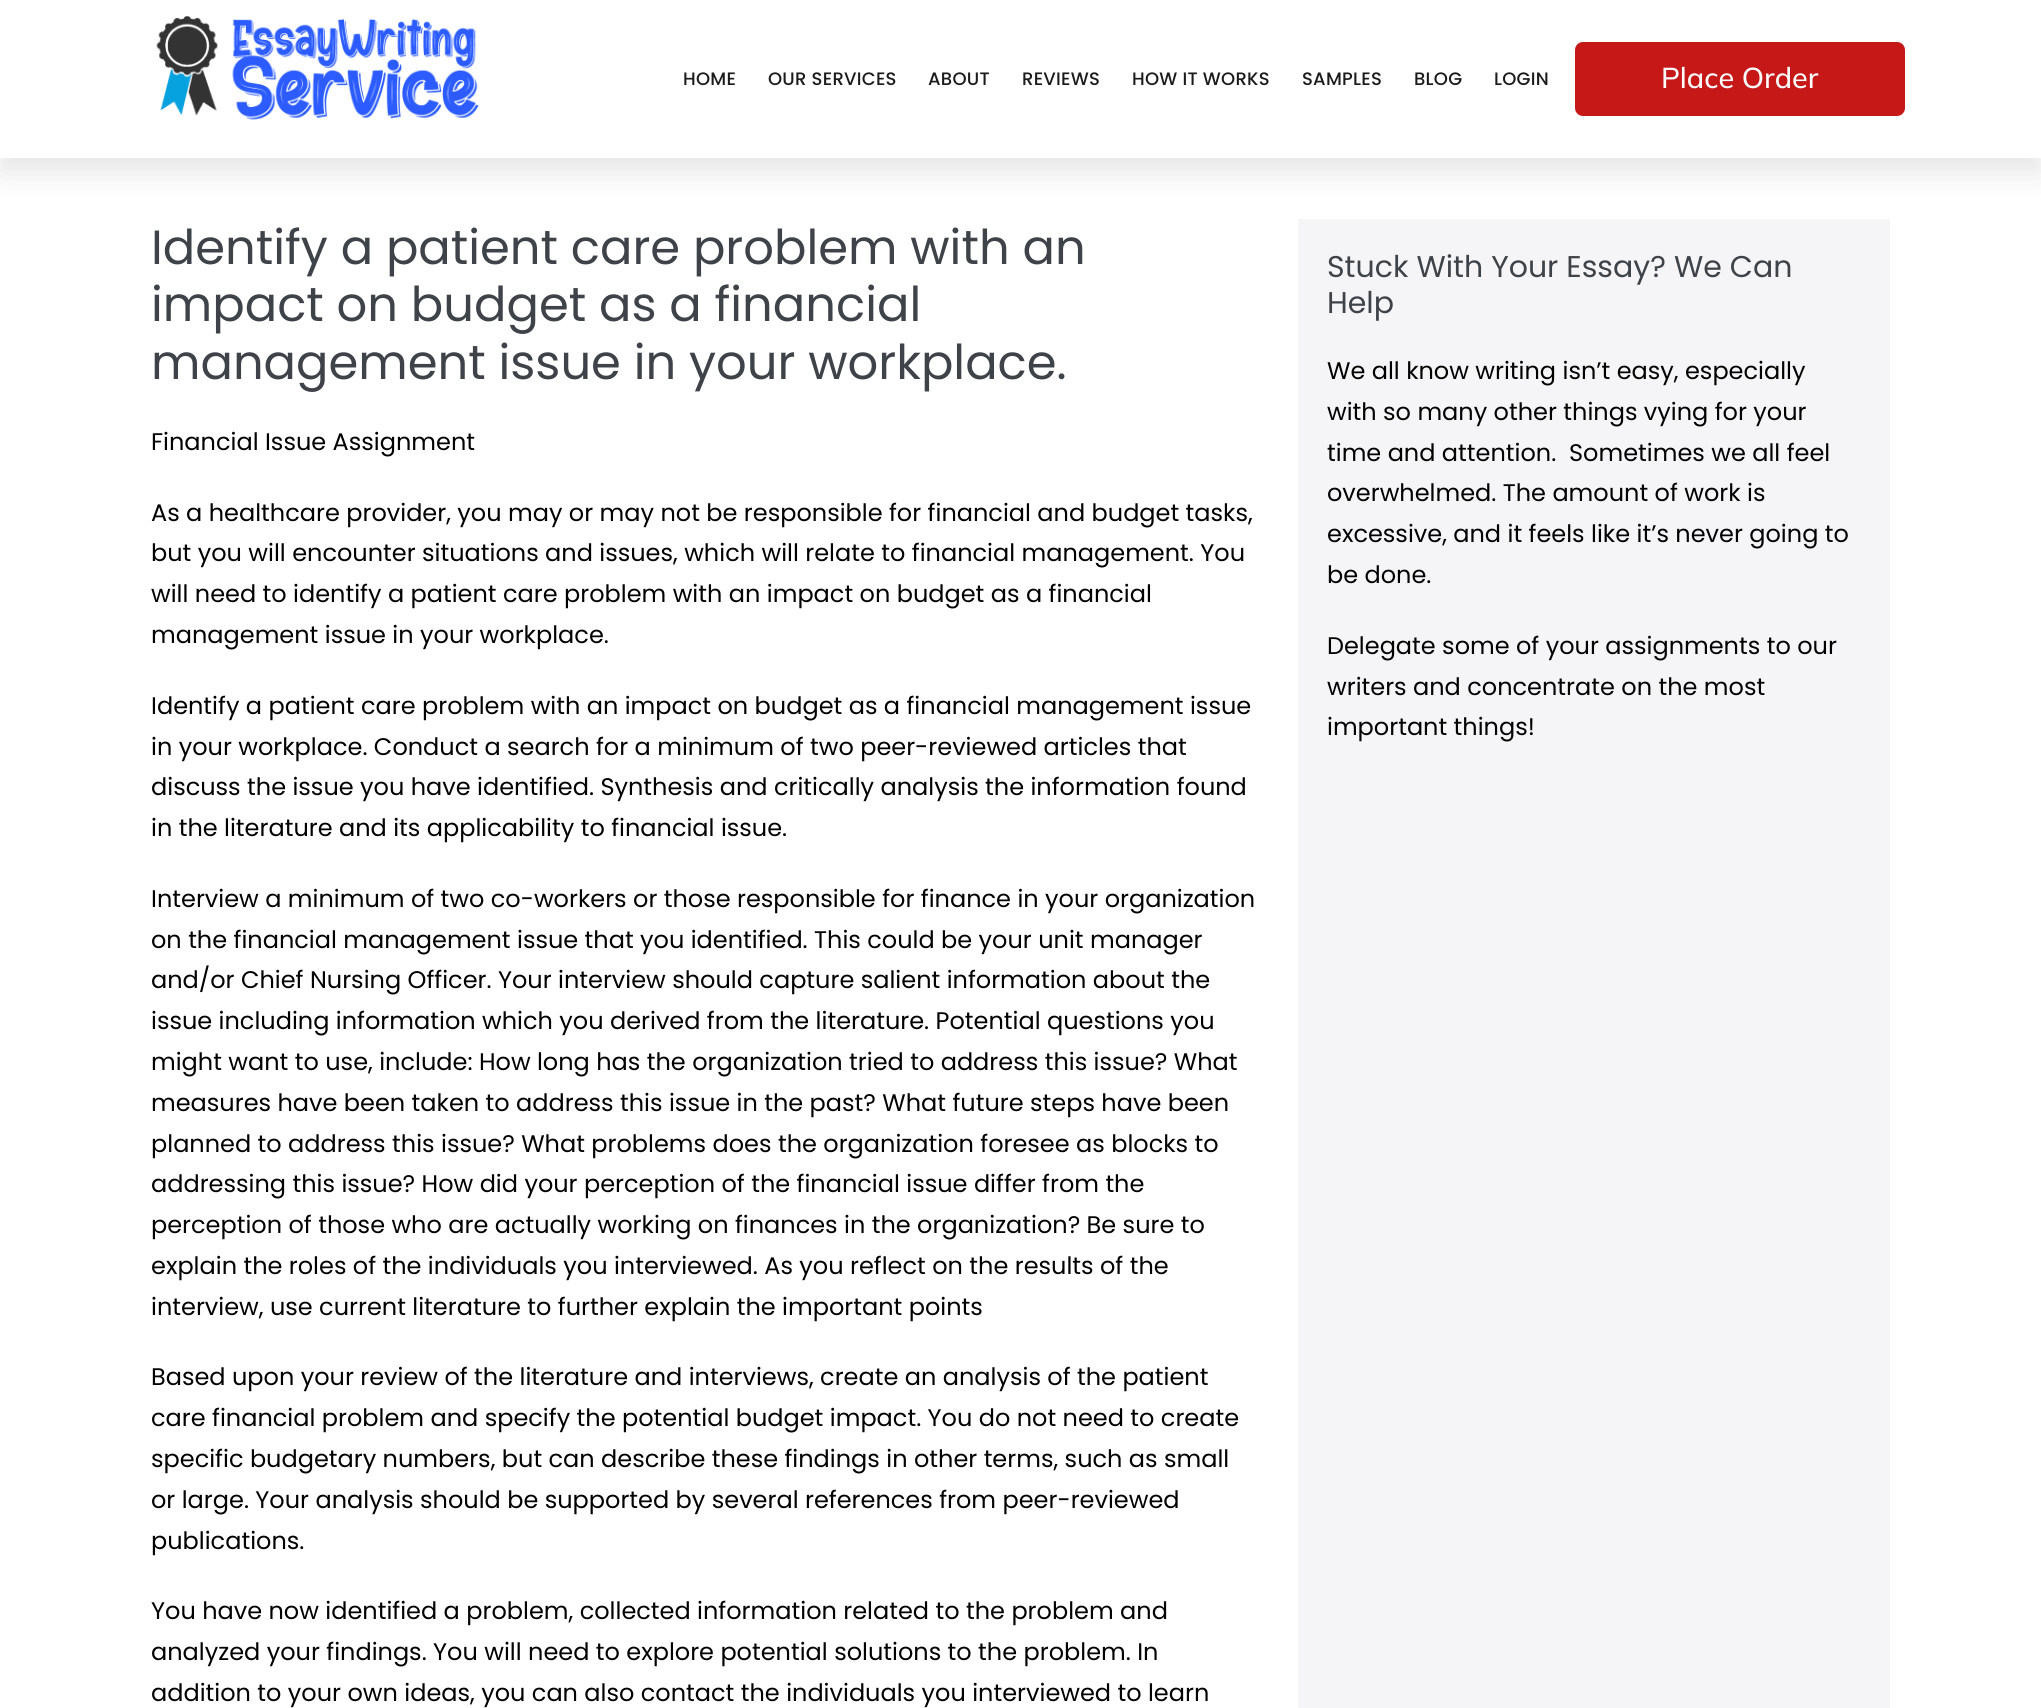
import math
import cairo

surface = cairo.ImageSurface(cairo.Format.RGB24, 2041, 1708)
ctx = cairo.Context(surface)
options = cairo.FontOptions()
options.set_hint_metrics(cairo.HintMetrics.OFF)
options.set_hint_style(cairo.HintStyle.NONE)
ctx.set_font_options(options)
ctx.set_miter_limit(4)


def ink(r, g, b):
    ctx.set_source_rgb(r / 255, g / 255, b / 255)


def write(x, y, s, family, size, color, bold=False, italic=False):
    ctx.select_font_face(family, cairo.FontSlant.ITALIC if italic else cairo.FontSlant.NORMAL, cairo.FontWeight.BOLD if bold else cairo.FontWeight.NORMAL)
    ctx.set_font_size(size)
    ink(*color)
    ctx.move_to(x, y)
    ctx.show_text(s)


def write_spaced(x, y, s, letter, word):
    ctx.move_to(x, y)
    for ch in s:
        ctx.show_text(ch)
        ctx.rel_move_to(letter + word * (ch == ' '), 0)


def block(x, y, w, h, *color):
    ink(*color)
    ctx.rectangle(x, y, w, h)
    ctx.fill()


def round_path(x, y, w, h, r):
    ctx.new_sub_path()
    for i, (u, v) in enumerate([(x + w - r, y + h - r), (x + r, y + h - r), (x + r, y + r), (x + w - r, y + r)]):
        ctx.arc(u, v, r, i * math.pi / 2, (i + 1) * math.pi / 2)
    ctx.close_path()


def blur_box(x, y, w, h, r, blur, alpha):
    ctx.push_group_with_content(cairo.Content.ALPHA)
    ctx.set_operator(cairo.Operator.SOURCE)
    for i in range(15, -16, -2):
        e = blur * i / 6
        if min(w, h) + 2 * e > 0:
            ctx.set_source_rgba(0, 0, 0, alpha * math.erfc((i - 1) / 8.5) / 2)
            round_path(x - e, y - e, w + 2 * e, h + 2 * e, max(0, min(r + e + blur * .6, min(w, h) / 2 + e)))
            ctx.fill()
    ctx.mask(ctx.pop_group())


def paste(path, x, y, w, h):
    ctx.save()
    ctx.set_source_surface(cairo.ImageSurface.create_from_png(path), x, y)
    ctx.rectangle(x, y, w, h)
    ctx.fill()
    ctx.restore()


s1 = dict(family="Mulish Medium", size=28.75, color=(255, 255, 255))
s2 = dict(family="Poppins", size=48, color=(62, 67, 73))
s3 = dict(family="Poppins", size=24, color=(0, 0, 0))
s4 = dict(family="Poppins", size=30, color=(62, 67, 73))

ink(255, 255, 255)
ctx.paint()
ink(0, 0, 0)
blur_box(0, 15, 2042, 158, 0, 15, 0.1)
block(0, 0, 2041, 158, 255, 255, 255)
paste("pic1.png", 156, 16, 323, 104)
ctx.select_font_face("Poppins Medium")
ctx.set_font_size(18)
ink(27, 27, 27)
write_spaced(683, 85, "HOME", 0.25, 0)
write_spaced(768, 85, "OUR SERVICES", 0.25, 0)
write_spaced(928, 85, "ABOUT", 0.25, 0)
write_spaced(1022, 85, "REVIEWS", 0.25, 0)
write_spaced(1132, 85, "HOW IT WORKS", 0.25, 0)
write_spaced(1302, 85, "SAMPLES", 0.25, 0)
write_spaced(1414, 85, "BLOG", 0.25, 0)
write_spaced(1494, 85, "LOGIN", 0.25, 0)
ink(199, 24, 24)
round_path(1575, 42, 330, 74, 8)
ctx.fill()
write(1661, 88, "Place Order", **s1)
write(151, 264, "Identify a patient care problem with an", **s2)
write(151, 321, "impact on budget as a financial", **s2)
write(151, 379, "management issue in your workplace.", **s2)
write(151, 450, "Financial Issue Assignment", **s3)
write(151, 521, "As a healthcare provider, you may or may not be responsible for financial and budget tasks,", **s3)
write(151, 561, "but you will encounter situations and issues, which will relate to financial management. You", **s3)
write(151, 602, "will need to identify a patient care problem with an impact on budget as a financial", **s3)
write(151, 643, "management issue in your workplace.", **s3)
write(151, 714, "Identify a patient care problem with an impact on budget as a financial management issue", **s3)
write(151, 755, "in your workplace. Conduct a search for a minimum of two peer-reviewed articles that", **s3)
write(151, 795, "discuss the issue you have identified. Synthesis and critically analysis the information found", **s3)
write(151, 836, "in the literature and its applicability to financial issue.", **s3)
write(151, 907, "Interview a minimum of two co-workers or those responsible for finance in your organization", **s3)
write(151, 948, "on the financial management issue that you identified. This could be your unit manager", **s3)
write(151, 988, "and/or Chief Nursing Officer. Your interview should capture salient information about the", **s3)
write(151, 1029, "issue including information which you derived from the literature. Potential questions you", **s3)
write(151, 1070, "might want to use, include: How long has the organization tried to address this issue? What", **s3)
write(151, 1111, "measures have been taken to address this issue in the past? What future steps have been", **s3)
write(151, 1152, "planned to address this issue? What problems does the organization foresee as blocks to", **s3)
write(151, 1192, "addressing this issue? How did your perception of the financial issue differ from the", **s3)
write(151, 1233, "perception of those who are actually working on finances in the organization? Be sure to", **s3)
write(151, 1274, "explain the roles of the individuals you interviewed. As you reflect on the results of the", **s3)
write(151, 1315, "interview, use current literature to further explain the important points", **s3)
write(151, 1385, "Based upon your review of the literature and interviews, create an analysis of the patient", **s3)
write(151, 1426, "care financial problem and specify the potential budget impact. You do not need to create", **s3)
write(151, 1467, "specific budgetary numbers, but can describe these findings in other terms, such as small", **s3)
write(151, 1508, "or large. Your analysis should be supported by several references from peer-reviewed", **s3)
write(151, 1549, "publications.", **s3)
write(151, 1619, "You have now identified a problem, collected information related to the problem and", **s3)
write(151, 1660, "analyzed your findings. You will need to explore potential solutions to the problem. In", **s3)
write(151, 1701, "addition to your own ideas, you can also contact the individuals you interviewed to learn", **s3)
block(1298, 219, 592, 1489, 245, 245, 247)
write(1327, 277, "Stuck With Your Essay? We Can", **s4)
write(1327, 313, "Help", **s4)
write(1327, 379, "We all know writing isn’t easy, especially", **s3)
write(1327, 420, "with so many other things vying for your", **s3)
write(1327, 461, "time and attention.  Sometimes we all feel", **s3)
write(1327, 501, "overwhelmed. The amount of work is", **s3)
write(1327, 542, "excessive, and it feels like it’s never going to", **s3)
write(1327, 583, "be done.", **s3)
write(1327, 654, "Delegate some of your assignments to our", **s3)
write(1327, 695, "writers and concentrate on the most", **s3)
write(1327, 735, "important things!", **s3)
surface.write_to_png("screenshot.png")
